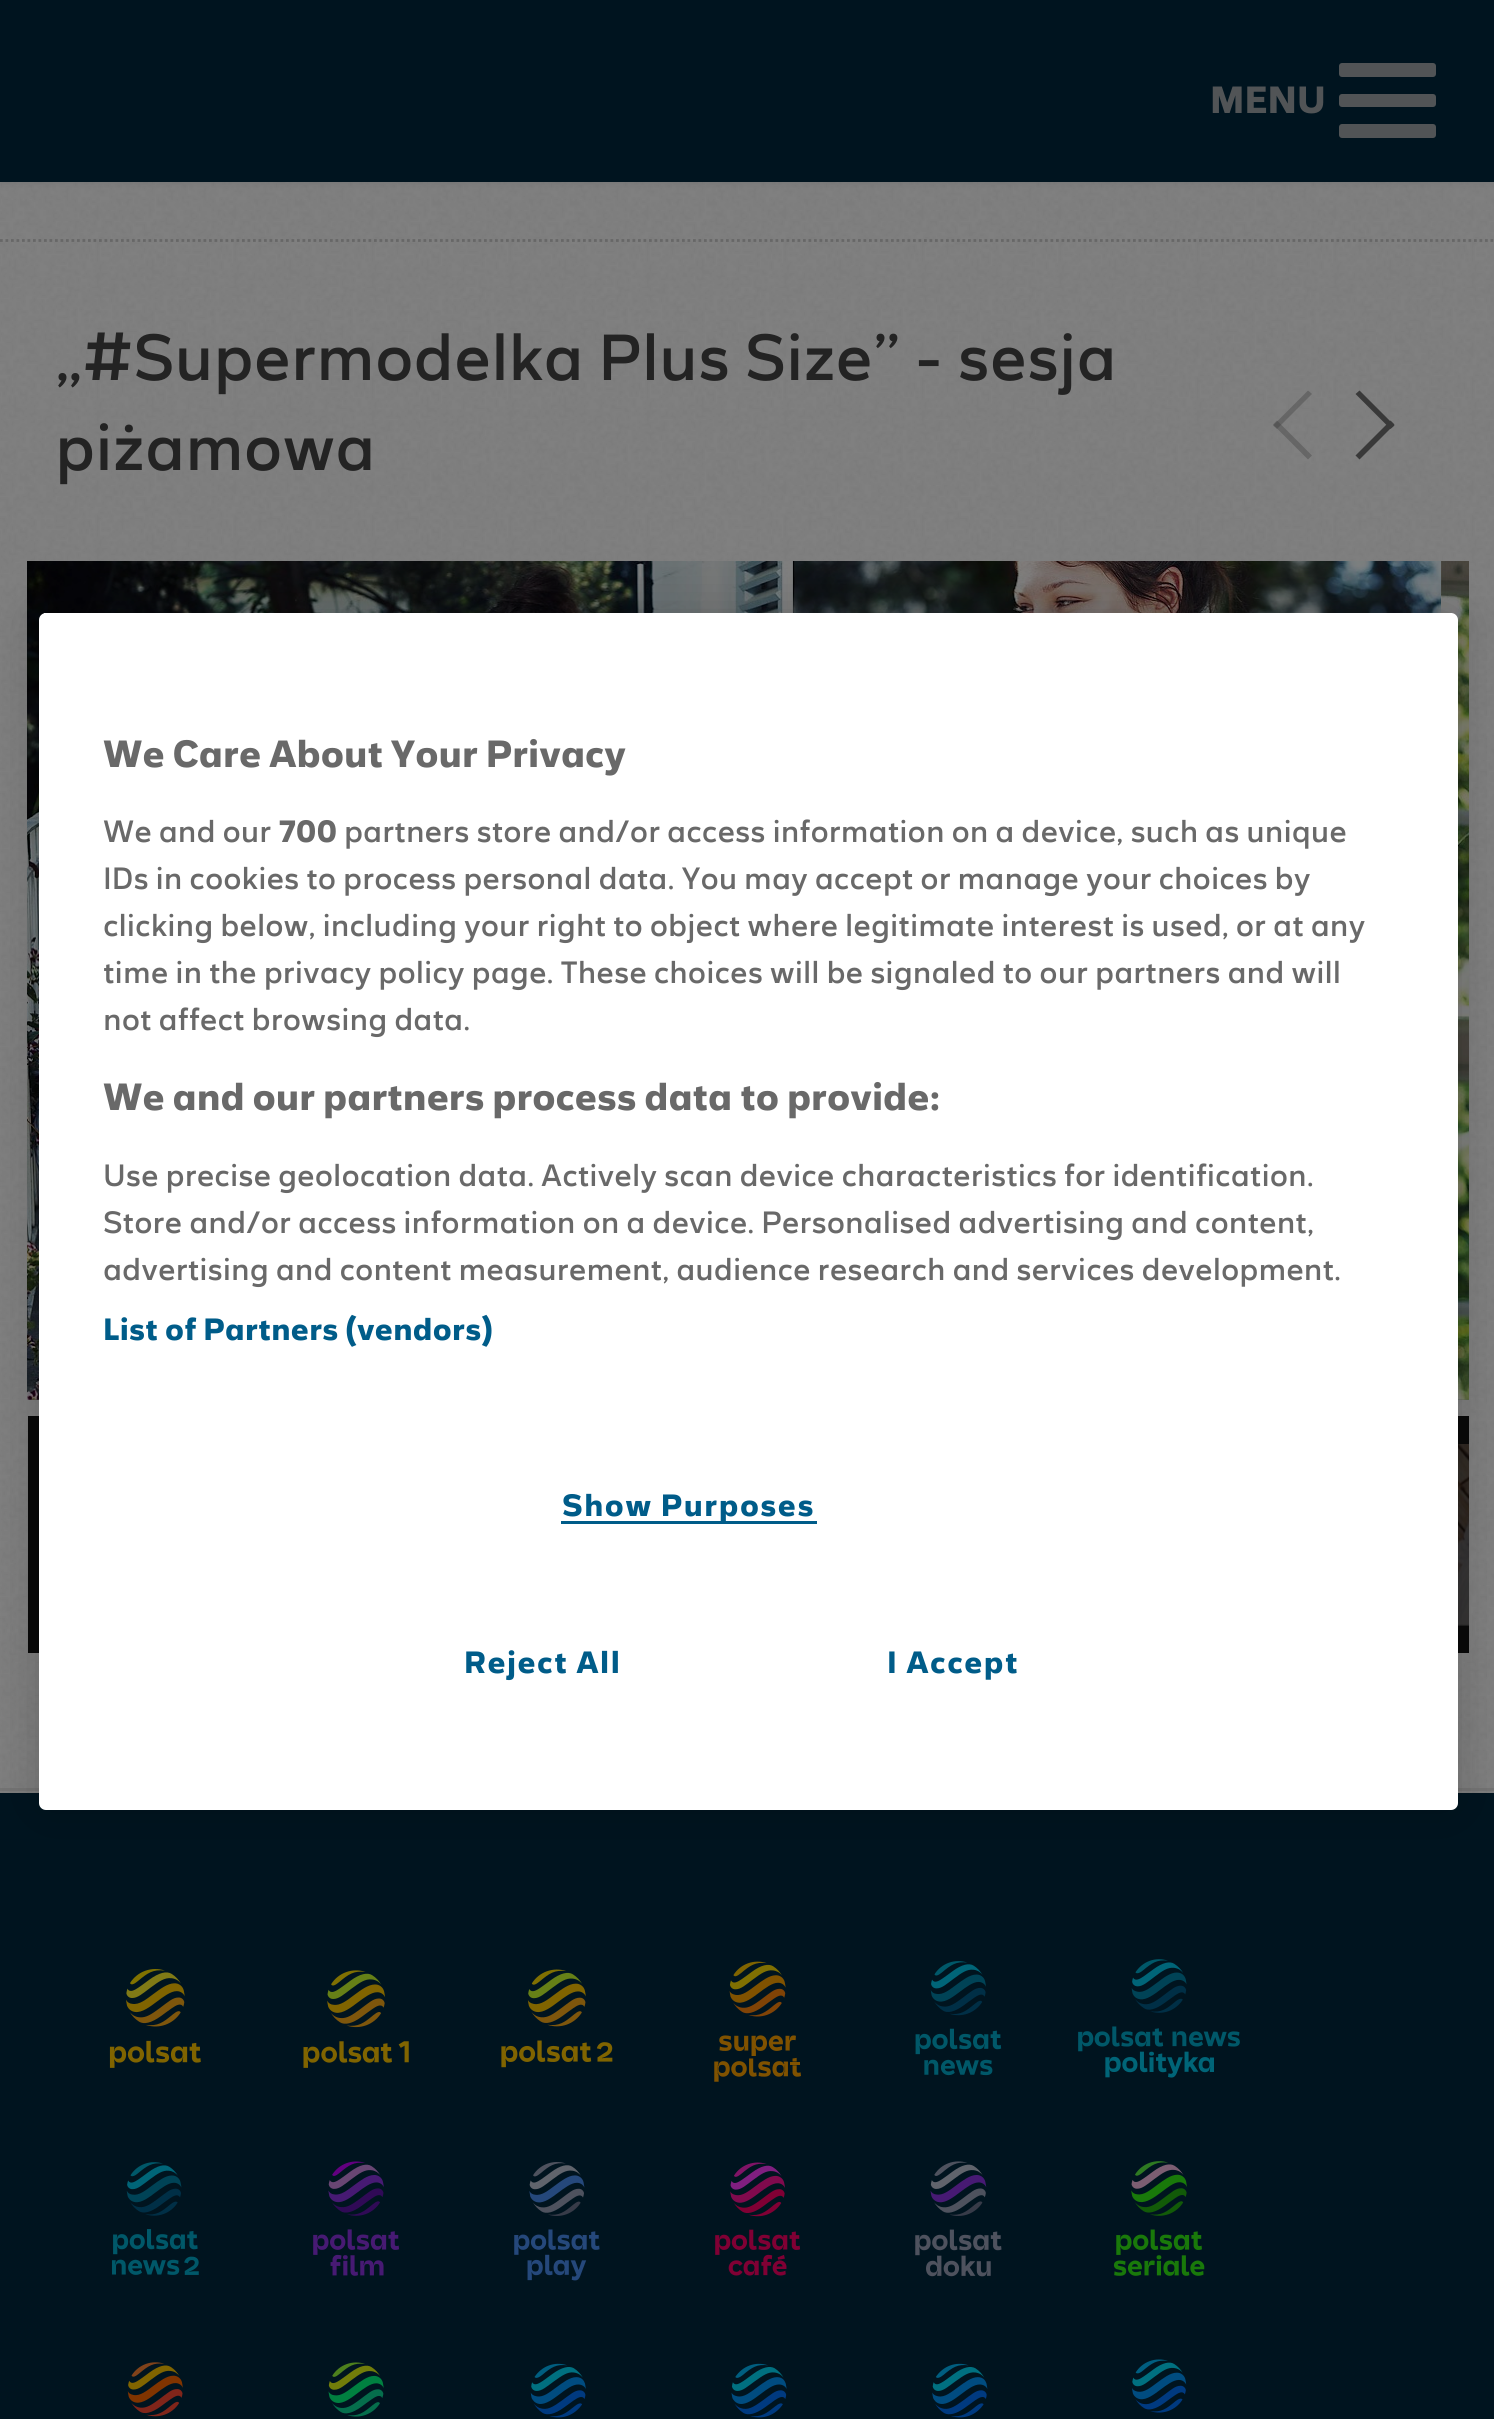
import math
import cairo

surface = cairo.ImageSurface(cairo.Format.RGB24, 1494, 2419)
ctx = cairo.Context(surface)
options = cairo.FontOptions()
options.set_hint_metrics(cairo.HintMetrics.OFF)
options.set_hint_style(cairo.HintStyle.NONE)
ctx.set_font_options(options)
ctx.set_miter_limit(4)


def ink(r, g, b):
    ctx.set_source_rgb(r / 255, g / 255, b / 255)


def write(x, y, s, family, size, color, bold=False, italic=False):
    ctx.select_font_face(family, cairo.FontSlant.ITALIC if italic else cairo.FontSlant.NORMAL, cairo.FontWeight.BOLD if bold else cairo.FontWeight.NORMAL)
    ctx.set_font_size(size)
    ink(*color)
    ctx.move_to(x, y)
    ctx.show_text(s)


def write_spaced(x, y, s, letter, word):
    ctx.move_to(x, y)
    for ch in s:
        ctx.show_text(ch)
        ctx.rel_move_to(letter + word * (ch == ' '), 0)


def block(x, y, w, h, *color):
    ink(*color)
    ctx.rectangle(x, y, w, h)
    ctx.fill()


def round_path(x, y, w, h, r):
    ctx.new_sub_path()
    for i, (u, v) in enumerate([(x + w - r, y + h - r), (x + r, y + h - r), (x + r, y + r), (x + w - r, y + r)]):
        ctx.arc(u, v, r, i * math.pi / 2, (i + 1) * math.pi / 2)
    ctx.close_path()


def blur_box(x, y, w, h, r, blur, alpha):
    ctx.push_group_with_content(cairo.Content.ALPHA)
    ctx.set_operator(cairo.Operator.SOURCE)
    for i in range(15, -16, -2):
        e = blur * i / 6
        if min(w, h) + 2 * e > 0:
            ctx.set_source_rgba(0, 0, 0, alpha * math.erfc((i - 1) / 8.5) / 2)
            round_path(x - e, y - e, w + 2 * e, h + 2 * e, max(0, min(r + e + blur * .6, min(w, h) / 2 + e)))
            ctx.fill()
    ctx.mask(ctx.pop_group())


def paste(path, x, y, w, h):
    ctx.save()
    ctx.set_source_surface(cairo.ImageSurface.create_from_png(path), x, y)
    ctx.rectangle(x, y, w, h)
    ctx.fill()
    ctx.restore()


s1 = dict(family="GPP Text", size=38.5, color=(81, 84, 86), bold=True)
s2 = dict(family="GPP Text", size=66, color=(35, 35, 35))
s3 = dict(family="GPP Text", size=38.5, color=(105, 105, 105), bold=True)
s4 = dict(family="GPP Text", size=31.3, color=(105, 105, 105))
s5 = dict(family="GPP Text", size=31.3, color=(105, 105, 105), bold=True)

ink(255, 255, 255)
ctx.paint()
paste("pic1.png", 0, 182, 1494, 1611)
ink(0, 0, 0)
blur_box(0, 0, 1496, 182, 0, 4, 0.1)
block(0, 0, 1494, 182, 0, 20, 31)
write(1210, 113, "MENU", **s1)
round_path(1339, 63, 97, 14, 3)
ctx.fill()
round_path(1339, 94, 97, 13, 3)
ctx.fill()
round_path(1339, 124, 97, 14, 3)
ctx.fill()
ctx.new_path()
ctx.move_to(0, 240.5)
ctx.line_to(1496, 240.5)
ink(103, 103, 103)
ctx.set_line_width(2.8)
ctx.set_dash([2.75, 2.75])
ctx.stroke()
write(55, 380, "„#Supermodelka Plus Size” - sesja", **s2)
write(55, 470, "piżamowa", **s2)
ctx.set_source_rgba(0.224, 0.224, 0.224, 0.35)
ctx.new_path()
ctx.move_to(1312, 394)
ctx.line_to(1277, 429)
ctx.line_to(1273, 425.5)
ctx.line_to(1308, 390.5)
ctx.close_path()
ctx.fill()
ctx.new_path()
ctx.move_to(1277, 420.5)
ctx.line_to(1312, 455.5)
ctx.line_to(1308, 459.5)
ctx.line_to(1273, 424.5)
ctx.close_path()
ctx.fill()
ink(57, 57, 57)
ctx.new_path()
ctx.move_to(1359.5, 390.5)
ctx.line_to(1394.5, 425.5)
ctx.line_to(1390.5, 429)
ctx.line_to(1355.5, 394)
ctx.close_path()
ctx.fill()
ctx.new_path()
ctx.move_to(1394.5, 424.5)
ctx.line_to(1359.5, 459.5)
ctx.line_to(1355.5, 455.5)
ctx.line_to(1390.5, 420.5)
ctx.close_path()
ctx.fill()
paste("pic2.png", 27, 561, 1442, 839)
paste("pic3.png", 1441, 561, 28, 839)
block(28, 1416, 1441, 237, 9, 9, 9)
paste("pic4.png", 1458, 1444, 11, 182)
block(0, 1793, 1494, 626, 0, 20, 31)
block(0, 1788, 1494, 3, 116, 116, 116)
ink(0, 0, 0)
blur_box(39, 613, 1419, 1197, 7, 25, 0.2)
ink(255, 255, 255)
round_path(39, 613, 1419, 1197, 7)
ctx.fill()
block(44, 613, 1408, 1, 255, 255, 255)
write(103, 767, "We Care About Your Privacy", **s3)
write(103, 842, "We and our", **s4)
write(279, 842, "700", **s5)
write(344, 842, "partners store and/or access information on a device, such as unique", **s4)
write(103, 889, "IDs in cookies to process personal data. You may accept or manage your choices by", **s4)
write(103, 936, "clicking below, including your right to object where legitimate interest is used, or at any", **s4)
write(103, 983, "time in the privacy policy page. These choices will be signaled to our partners and will", **s4)
write(103, 1030, "not affect browsing data.", **s4)
write(103, 1110, "We and our partners process data to provide:", **s3)
write(103, 1186, "Use precise geolocation data. Actively scan device characteristics for identification.", **s4)
write(103, 1233, "Store and/or access information on a device. Personalised advertising and content,", **s4)
write(103, 1280, "advertising and content measurement, audience research and services development.", **s4)
ctx.select_font_face("GPP Text", cairo.FontSlant.NORMAL, cairo.FontWeight.BOLD)
ink(0, 92, 137)
write_spaced(103, 1340, "List of Partners (vendors)", 0.3, 0)
block(561, 1521, 256, 3, 0, 92, 137)
write_spaced(562, 1516, "Show Purposes", 1.5, 0)
write_spaced(464, 1673, "Reject All", 1.5, 0)
write_spaced(887, 1673, "I Accept", 1.5, 0)
paste("pic5.png", 109, 1969, 92, 99)
paste("pic6.png", 303, 1970, 106, 98)
paste("pic7.png", 501, 1969, 112, 99)
paste("pic8.png", 714, 1961, 87, 121)
paste("pic9.png", 915, 1961, 87, 115)
paste("pic10.png", 1078, 1959, 162, 119)
paste("pic11.png", 111, 2162, 88, 113)
paste("pic12.png", 313, 2161, 86, 115)
paste("pic13.png", 514, 2162, 86, 119)
paste("pic14.png", 715, 2162, 85, 114)
paste("pic15.png", 915, 2161, 87, 116)
paste("pic16.png", 1113, 2161, 92, 115)
paste("pic17.png", 127, 2362, 56, 55)
paste("pic18.png", 328, 2362, 56, 55)
paste("pic19.png", 530, 2363, 56, 55)
paste("pic20.png", 731, 2363, 56, 55)
paste("pic21.png", 932, 2363, 56, 55)
paste("pic22.png", 1132, 2359, 55, 54)
surface.write_to_png("screenshot.png")
